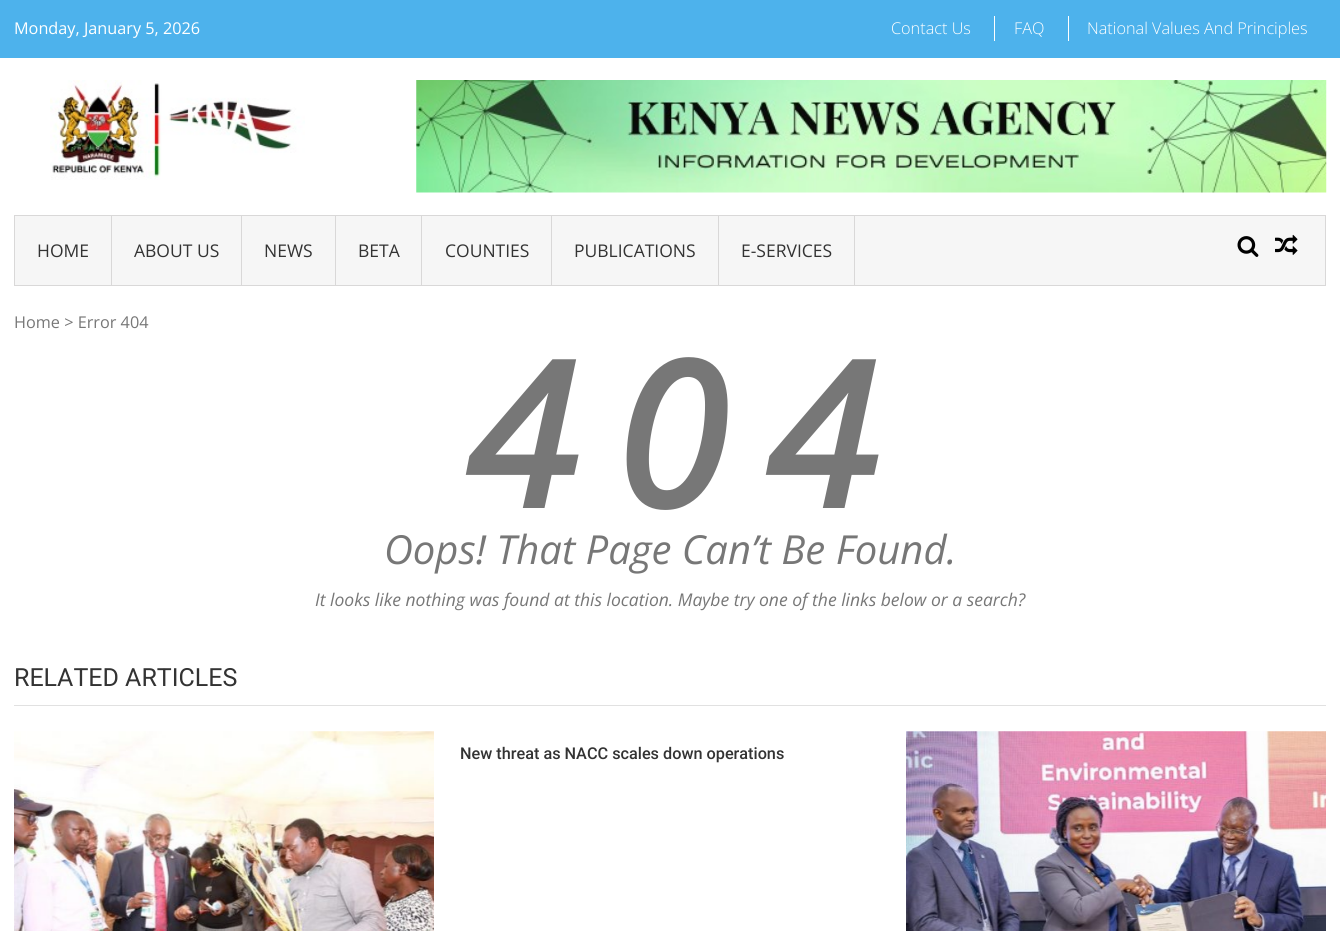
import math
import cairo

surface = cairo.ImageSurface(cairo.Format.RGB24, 1340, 931)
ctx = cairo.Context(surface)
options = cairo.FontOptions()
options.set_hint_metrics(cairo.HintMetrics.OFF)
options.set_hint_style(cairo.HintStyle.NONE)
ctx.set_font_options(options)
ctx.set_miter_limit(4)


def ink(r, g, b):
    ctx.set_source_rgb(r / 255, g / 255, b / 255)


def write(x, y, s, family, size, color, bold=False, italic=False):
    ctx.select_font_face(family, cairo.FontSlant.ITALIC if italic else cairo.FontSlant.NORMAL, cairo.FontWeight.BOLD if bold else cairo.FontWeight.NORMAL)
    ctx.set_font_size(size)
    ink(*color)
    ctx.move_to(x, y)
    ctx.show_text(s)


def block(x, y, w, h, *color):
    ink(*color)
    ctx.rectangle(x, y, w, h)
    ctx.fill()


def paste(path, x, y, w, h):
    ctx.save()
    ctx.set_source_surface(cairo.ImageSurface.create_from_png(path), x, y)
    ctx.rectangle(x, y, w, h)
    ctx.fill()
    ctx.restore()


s1 = dict(family="Open Sans", size=16.25, color=(255, 255, 255))
s2 = dict(family="Open Sans Light", size=16.25, color=(255, 255, 255))
s3 = dict(family="Open Sans", size=17.5, color=(51, 51, 51))
s4 = dict(family="Open Sans", size=16.25, color=(119, 119, 119))
s5 = dict(family="Open Sans", size=200, color=(119, 119, 119), bold=True, italic=True)
s6 = dict(family="Open Sans", size=40, color=(119, 119, 119), italic=True)
s7 = dict(family="Open Sans", size=17.5, color=(119, 119, 119), italic=True)
s8 = dict(family="Roboto", size=25, color=(51, 51, 51))
s9 = dict(family="Roboto Medium", size=16.25, color=(51, 51, 51))

ink(255, 255, 255)
ctx.paint()
block(0, 0, 1340, 58, 77, 178, 236)
write(14, 34, "Monday, January 5, 2026", **s1)
write(891, 34, "Contact Us", **s2)
block(994, 16, 1, 25, 255, 255, 255)
write(1014, 34, "FAQ", **s2)
block(1068, 16, 1, 25, 255, 255, 255)
write(1087, 34, "National Values And Principles", **s2)
paste("pic1.png", 50, 80, 255, 100)
paste("pic2.png", 416, 80, 911, 113)
ink(246, 246, 246)
ctx.rectangle(14.5, 215.5, 1311, 70)
ctx.fill_preserve()
ink(217, 216, 216)
ctx.set_line_width(1)
ctx.stroke()
block(111, 216, 1, 69, 217, 216, 216)
write(37, 257, "HOME", **s3)
block(241, 216, 1, 69, 217, 216, 216)
write(134, 257, "ABOUT US", **s3)
block(335, 216, 1, 69, 217, 216, 216)
write(264, 257, "NEWS", **s3)
block(421, 216, 1, 69, 217, 216, 216)
write(358, 257, "BETA", **s3)
block(551, 216, 1, 69, 217, 216, 216)
write(445, 257, "COUNTIES", **s3)
block(718, 216, 1, 69, 217, 216, 216)
write(574, 257, "PUBLICATIONS", **s3)
block(854, 216, 1, 69, 217, 216, 216)
write(741, 257, "E-SERVICES", **s3)
paste("pic3.png", 1237, 236, 22, 21)
paste("pic4.png", 1275, 234, 23, 21)
write(14, 328, "Home > Error 404", **s4)
write(465, 508, "4", **s5)
write(615, 508, "0", **s5)
write(765, 508, "4", **s5)
write(384, 564, "Oops! That Page Can’t Be Found.", **s6)
write(315, 606, "It looks like nothing was found at this location. Maybe try one of the links below or a search?", **s7)
block(14, 705, 1312, 1, 225, 225, 225)
write(14, 686, "RELATED ARTICLES", **s8)
paste("pic5.png", 14, 731, 420, 200)
write(460, 759, "New threat as NACC scales down operations", **s9)
paste("pic6.png", 906, 731, 420, 200)
surface.write_to_png("screenshot.png")
